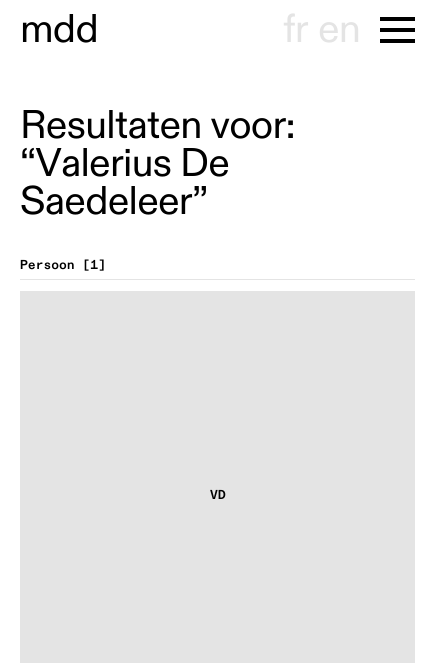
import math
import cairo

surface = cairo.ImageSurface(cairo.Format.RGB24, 435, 663)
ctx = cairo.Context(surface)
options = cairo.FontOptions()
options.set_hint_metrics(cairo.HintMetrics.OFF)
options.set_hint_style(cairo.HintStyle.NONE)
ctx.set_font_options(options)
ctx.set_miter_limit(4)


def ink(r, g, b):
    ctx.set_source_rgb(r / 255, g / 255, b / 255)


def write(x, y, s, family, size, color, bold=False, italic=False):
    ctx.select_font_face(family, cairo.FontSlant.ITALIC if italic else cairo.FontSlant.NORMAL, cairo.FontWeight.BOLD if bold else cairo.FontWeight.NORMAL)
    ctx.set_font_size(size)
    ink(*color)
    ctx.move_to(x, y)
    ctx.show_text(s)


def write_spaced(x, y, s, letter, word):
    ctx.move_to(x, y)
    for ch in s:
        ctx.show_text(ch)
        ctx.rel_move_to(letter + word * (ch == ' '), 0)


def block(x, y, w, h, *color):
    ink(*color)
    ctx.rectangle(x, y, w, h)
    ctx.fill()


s1 = dict(family="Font", size=13, color=(0, 0, 0), bold=True)

ink(255, 255, 255)
ctx.paint()
ctx.select_font_face("Font")
ctx.set_font_size(40)
ink(0, 0, 0)
write_spaced(20, 42, "mdd", -0.75, 0)
ink(228, 228, 228)
write_spaced(283, 42, "fr", -0.75, 0)
write_spaced(318, 42, "en", -0.75, 0)
block(380, 17, 35, 4, 0, 0, 0)
block(380, 28, 35, 4, 0, 0, 0)
block(380, 39, 35, 4, 0, 0, 0)
write_spaced(20, 138, "Resultaten voor:", -0.75, 0)
write_spaced(20, 176, "“Valerius De", -0.75, 0)
write_spaced(20, 214, "Saedeleer”", -0.75, 0)
block(20, 279, 395, 1, 228, 228, 228)
write(20, 269, "Persoon [1]", **s1)
block(20, 291, 395, 372, 228, 228, 228)
write(210, 499, "VD", **s1)
surface.write_to_png("screenshot.png")
